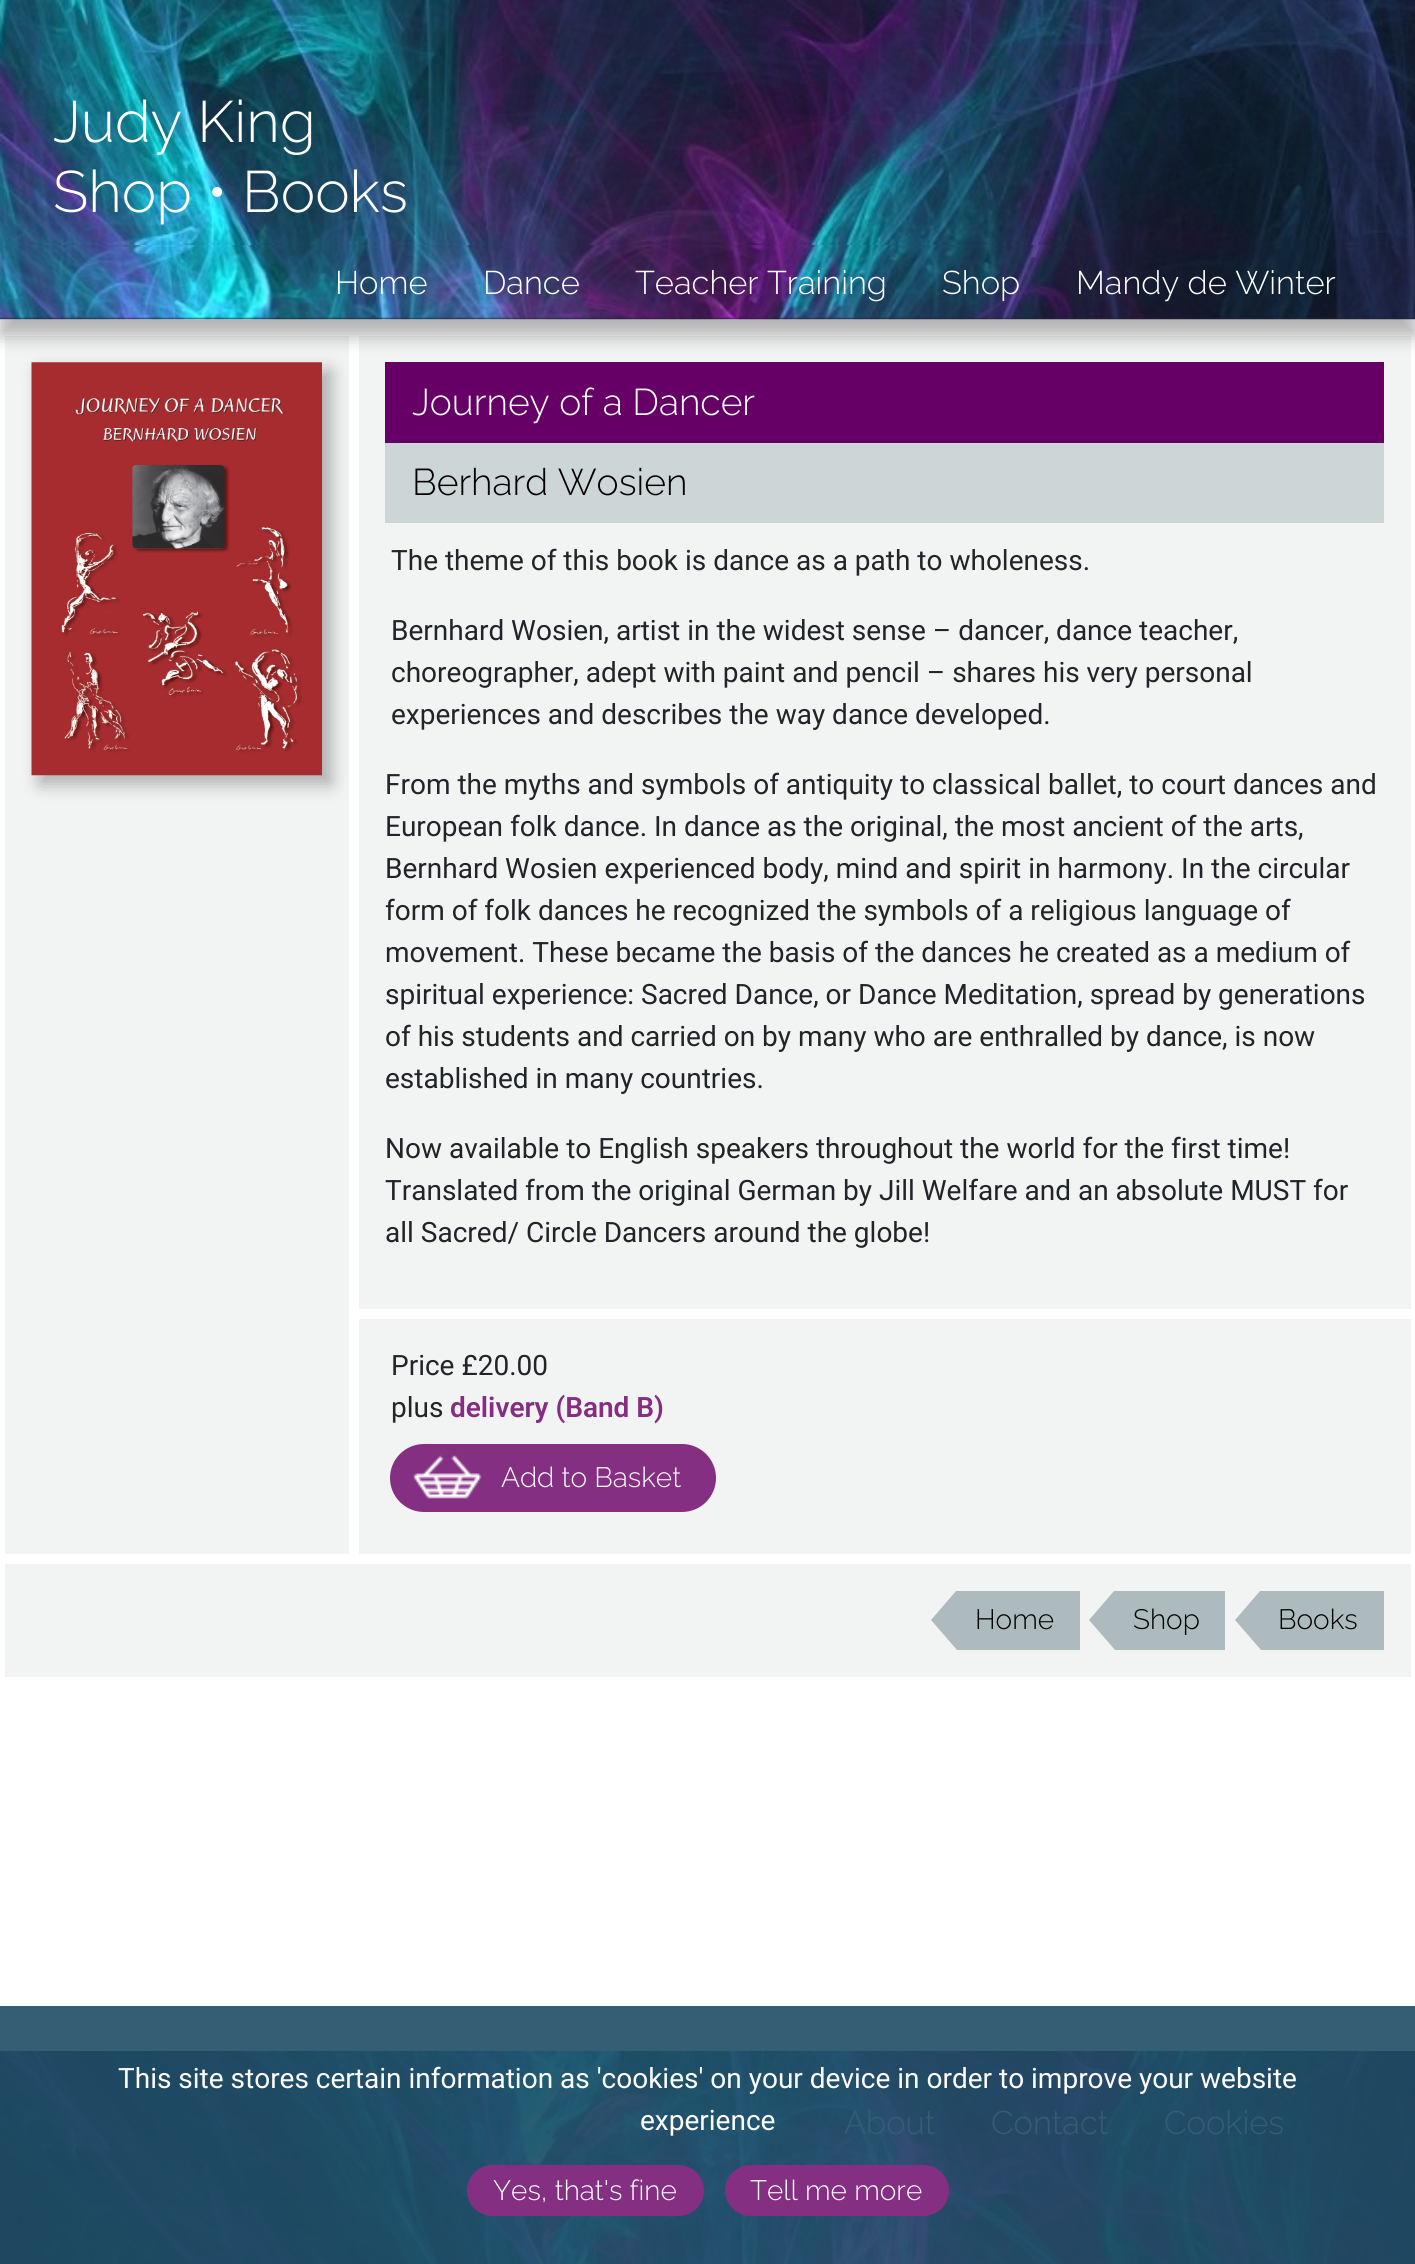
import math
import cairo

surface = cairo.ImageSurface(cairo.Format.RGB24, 1415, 2264)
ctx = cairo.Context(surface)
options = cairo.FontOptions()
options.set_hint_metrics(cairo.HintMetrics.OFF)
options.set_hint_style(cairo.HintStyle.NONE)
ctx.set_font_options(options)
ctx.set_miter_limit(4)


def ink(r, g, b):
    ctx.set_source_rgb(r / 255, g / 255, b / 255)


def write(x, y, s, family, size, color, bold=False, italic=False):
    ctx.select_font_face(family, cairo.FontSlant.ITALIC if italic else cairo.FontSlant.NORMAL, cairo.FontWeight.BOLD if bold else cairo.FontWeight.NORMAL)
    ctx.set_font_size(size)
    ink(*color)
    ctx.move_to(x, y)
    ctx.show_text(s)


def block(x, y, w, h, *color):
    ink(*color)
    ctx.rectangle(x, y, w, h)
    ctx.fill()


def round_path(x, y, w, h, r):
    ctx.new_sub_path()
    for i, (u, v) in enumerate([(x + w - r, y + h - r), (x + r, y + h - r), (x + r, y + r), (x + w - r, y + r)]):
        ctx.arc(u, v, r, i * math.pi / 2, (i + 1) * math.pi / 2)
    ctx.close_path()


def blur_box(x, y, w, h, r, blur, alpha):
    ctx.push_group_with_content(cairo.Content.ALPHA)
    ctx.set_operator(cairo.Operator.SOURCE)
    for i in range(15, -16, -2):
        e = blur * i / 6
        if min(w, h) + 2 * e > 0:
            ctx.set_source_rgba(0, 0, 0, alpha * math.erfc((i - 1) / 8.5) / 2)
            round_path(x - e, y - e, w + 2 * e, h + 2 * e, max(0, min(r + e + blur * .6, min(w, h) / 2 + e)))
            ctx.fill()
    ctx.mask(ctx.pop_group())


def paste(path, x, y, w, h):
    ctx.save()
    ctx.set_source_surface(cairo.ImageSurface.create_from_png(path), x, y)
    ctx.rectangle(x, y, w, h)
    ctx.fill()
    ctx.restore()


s1 = dict(family="Raleway Thin", size=58.25, color=(255, 255, 255))
s2 = dict(family="Raleway Thin", size=32.75, color=(255, 255, 255))
s3 = dict(family="Raleway Thin", size=37.25, color=(255, 255, 255))
s4 = dict(family="Raleway Thin", size=37.25, color=(0, 0, 0))
s5 = dict(family="Roboto", size=28, color=(33, 37, 41))
s6 = dict(family="Roboto SemiBold", size=28, color=(134, 44, 130))
s7 = dict(family="Raleway Thin", size=28, color=(255, 255, 255))
s8 = dict(family="Raleway Thin", size=28, color=(0, 0, 0))
s9 = dict(family="Raleway Thin", size=32.75, color=(52, 94, 116))
s10 = dict(family="Roboto", size=28, color=(255, 255, 255))

ink(255, 255, 255)
ctx.paint()
block(0, 2006, 1415, 45, 52, 94, 116)
paste("pic1.png", 0, 0, 1415, 245)
write(53, 142, "Judy King", **s1)
write(53, 212, "Shop • Books", **s1)
block(5, 336, 344, 1218, 242, 244, 244)
ink(0, 0, 0)
blur_box(40, 371, 291, 413, 0, 9, 0.3)
paste("pic3.png", 31, 362, 291, 414)
block(359, 336, 1052, 973, 242, 244, 244)
block(385, 362, 999, 81, 102, 0, 102)
ink(0, 0, 0)
blur_box(0, 263, 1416, 73, 0, 9, 0.3)
block(0, 245, 1415, 74, 32, 30, 61)
paste("pic2.png", 0, 245, 1415, 75)
write(335, 294, "Home", **s2)
write(483, 294, "Dance", **s2)
write(635, 294, "Teacher Training", **s2)
write(942, 294, "Shop", **s2)
write(1076, 294, "Mandy de Winter", **s2)
write(412, 415, "Journey of a Dancer", **s3)
block(385, 443, 999, 80, 204, 214, 215)
write(412, 495, "Berhard Wosien", **s4)
write(391, 570, "The theme of this book is dance as a path to wholeness.", **s5)
write(391, 640, "Bernhard Wosien, artist in the widest sense – dancer, dance teacher,", **s5)
write(391, 682, "choreographer, adept with paint and pencil – shares his very personal", **s5)
write(391, 724, "experiences and describes the way dance developed.", **s5)
write(385, 794, "From the myths and symbols of antiquity to classical ballet, to court dances and", **s5)
write(385, 836, "European folk dance. In dance as the original, the most ancient of the arts,", **s5)
write(385, 878, "Bernhard Wosien experienced body, mind and spirit in harmony. In the circular", **s5)
write(385, 920, "form of folk dances he recognized the symbols of a religious language of", **s5)
write(385, 962, "movement. These became the basis of the dances he created as a medium of", **s5)
write(385, 1004, "spiritual experience: Sacred Dance, or Dance Meditation, spread by generations", **s5)
write(385, 1046, "of his students and carried on by many who are enthralled by dance, is now", **s5)
write(385, 1088, "established in many countries.", **s5)
write(385, 1158, "Now available to English speakers throughout the world for the first time!", **s5)
write(385, 1200, "Translated from the original German by Jill Welfare and an absolute MUST for", **s5)
write(385, 1242, "all Sacred/ Circle Dancers around the globe!", **s5)
block(359, 1319, 1052, 235, 242, 244, 244)
write(391, 1375, "Price £20.00", **s5)
write(391, 1417, "plus", **s5)
write(450, 1417, "delivery (Band B)", **s6)
ink(132, 47, 130)
round_path(390, 1444, 326, 68, 34)
ctx.fill()
paste("pic4.png", 413, 1455, 69, 44)
write(501, 1487, "Add to Basket", **s7)
block(5, 1564, 1406, 113, 242, 244, 244)
ink(173, 187, 190)
ctx.new_path()
ctx.move_to(960, 1591)
ctx.line_to(1080, 1591)
ctx.line_to(1080, 1650)
ctx.line_to(957, 1650)
ctx.line_to(931, 1620)
ctx.line_to(956, 1591)
ctx.close_path()
ctx.fill()
write(975, 1629, "Home", **s8)
ink(173, 187, 190)
ctx.new_path()
ctx.move_to(1118, 1591)
ctx.line_to(1225, 1591)
ctx.line_to(1225, 1650)
ctx.line_to(1115, 1650)
ctx.line_to(1089, 1620)
ctx.line_to(1114, 1591)
ctx.close_path()
ctx.fill()
write(1133, 1629, "Shop", **s8)
ink(173, 187, 190)
ctx.new_path()
ctx.move_to(1264, 1591)
ctx.line_to(1384, 1591)
ctx.line_to(1384, 1650)
ctx.line_to(1261, 1650)
ctx.line_to(1235, 1620)
ctx.line_to(1260, 1591)
ctx.close_path()
ctx.fill()
write(1278, 1629, "Books", **s8)
paste("pic5.png", 0, 2051, 1415, 213)
write(844, 2134, "About", **s9)
write(991, 2134, "Contact", **s9)
write(1164, 2134, "Cookies", **s9)
write(118, 2088, "This site stores certain information as 'cookies' on your device in order to improve your website", **s10)
write(640, 2130, "experience", **s10)
ink(132, 47, 130)
round_path(467, 2165, 237, 51, 25.5)
ctx.fill()
write(493, 2200, "Yes, that's fine", **s7)
ink(132, 47, 130)
round_path(725, 2165, 224, 51, 25.5)
ctx.fill()
write(750, 2200, "Tell me more", **s7)
surface.write_to_png("screenshot.png")
